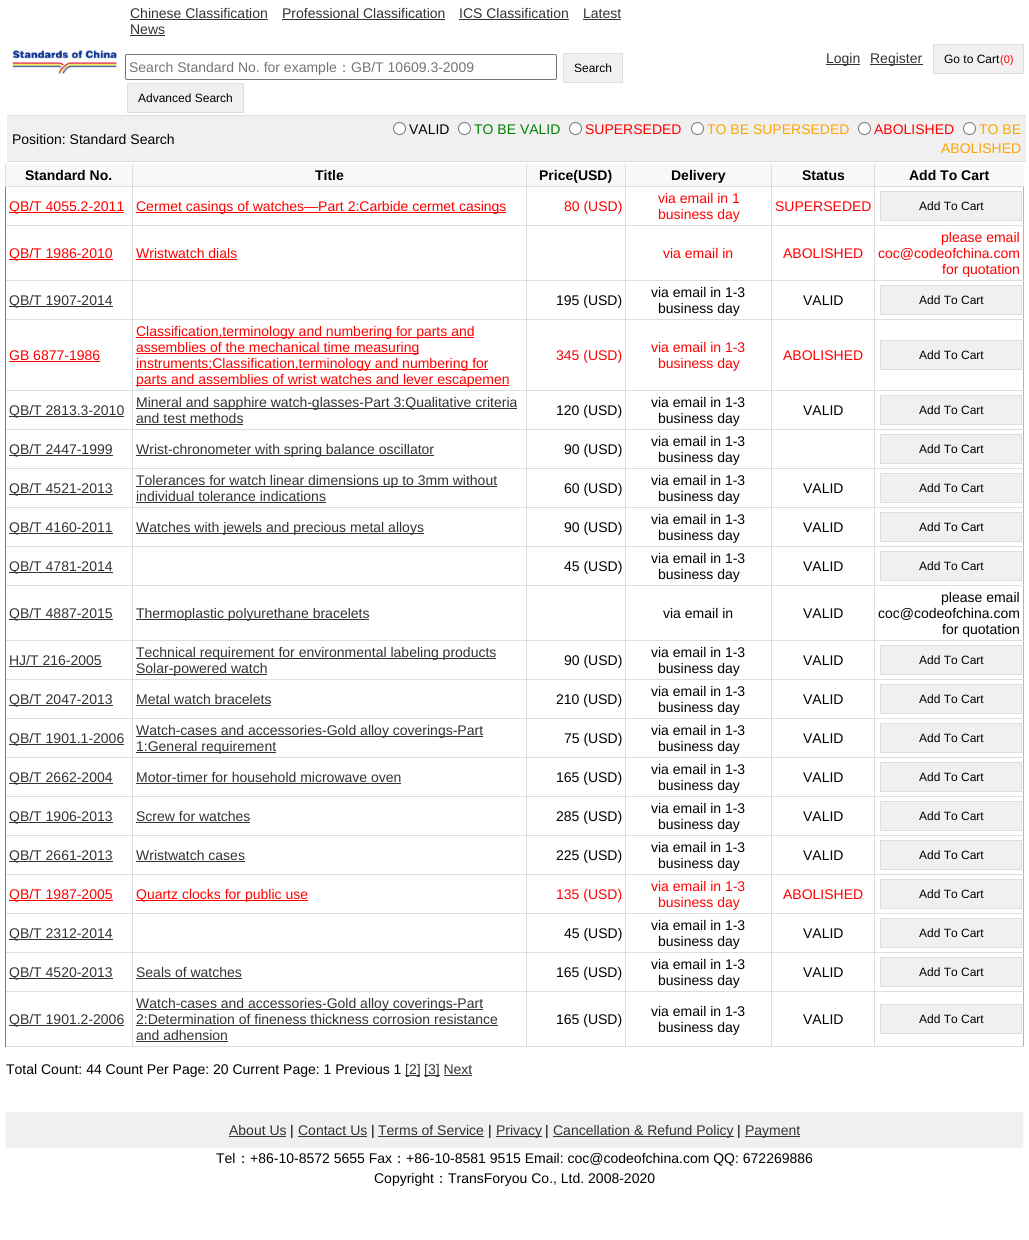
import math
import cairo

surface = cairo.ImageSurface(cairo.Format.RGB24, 1029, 1240)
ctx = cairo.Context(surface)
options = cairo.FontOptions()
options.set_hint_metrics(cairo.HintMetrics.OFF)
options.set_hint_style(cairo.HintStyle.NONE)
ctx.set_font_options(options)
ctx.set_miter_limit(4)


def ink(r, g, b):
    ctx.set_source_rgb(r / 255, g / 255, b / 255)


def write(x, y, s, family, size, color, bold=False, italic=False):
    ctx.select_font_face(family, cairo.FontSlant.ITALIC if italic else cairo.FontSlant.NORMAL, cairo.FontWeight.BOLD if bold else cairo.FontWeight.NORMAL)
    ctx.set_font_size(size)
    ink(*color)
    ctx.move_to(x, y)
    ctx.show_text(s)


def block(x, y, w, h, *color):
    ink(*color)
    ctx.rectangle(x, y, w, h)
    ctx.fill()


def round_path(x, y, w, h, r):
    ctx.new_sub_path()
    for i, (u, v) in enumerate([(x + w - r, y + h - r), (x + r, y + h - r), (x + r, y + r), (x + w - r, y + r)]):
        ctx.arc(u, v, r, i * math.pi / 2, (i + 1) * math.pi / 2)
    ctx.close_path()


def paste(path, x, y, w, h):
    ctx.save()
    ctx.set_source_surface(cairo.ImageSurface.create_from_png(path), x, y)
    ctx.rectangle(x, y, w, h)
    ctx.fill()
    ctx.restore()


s1 = dict(family="Liberation Sans", size=14, color=(51, 51, 51))
s2 = dict(family="Liberation Sans", size=14, color=(117, 117, 117))
s3 = dict(family="WenQuanYi Zen Hei Medium", size=14, color=(117, 117, 117))
s4 = dict(family="Liberation Sans", size=12, color=(0, 0, 0))
s5 = dict(family="Liberation Sans", size=11, color=(255, 0, 0))
s6 = dict(family="Liberation Sans", size=14, color=(0, 0, 0))
s7 = dict(family="Liberation Sans", size=14, color=(0, 128, 0))
s8 = dict(family="Liberation Sans", size=14, color=(255, 0, 0))
s9 = dict(family="Liberation Sans", size=14, color=(255, 165, 0))
s10 = dict(family="Liberation Sans", size=14, color=(0, 0, 0), bold=True)
s11 = dict(family="WenQuanYi Zen Hei Medium", size=14, color=(0, 0, 0))

ink(255, 255, 255)
ctx.paint()
paste("pic1.png", 12, 50, 105, 24)
write(130, 18, "Chinese Classification", **s1)
block(130, 19, 138, 1, 51, 51, 51)
write(282, 18, "Professional Classification", **s1)
block(282, 19, 163, 1, 51, 51, 51)
write(459, 18, "ICS Classification", **s1)
block(459, 19, 110, 1, 51, 51, 51)
write(583, 18, "Latest", **s1)
block(583, 19, 38, 1, 51, 51, 51)
write(130, 34, "News", **s1)
block(130, 35, 35, 1, 51, 51, 51)
round_path(125.5, 54.5, 431, 25, 1.5)
ink(118, 118, 118)
ctx.set_line_width(1)
ctx.stroke()
write(129, 72, "Search Standard No. for example", **s2)
write(337, 72, "：", **s3)
write(351, 72, "GB/T 10609.3-2009", **s2)
ink(240, 240, 240)
ctx.rectangle(563.5, 53.5, 59, 29)
ctx.fill_preserve()
ink(221, 221, 221)
ctx.stroke()
write(574, 72, "Search", **s4)
ink(240, 240, 240)
ctx.rectangle(127.5, 83.5, 116, 29)
ctx.fill_preserve()
ink(221, 221, 221)
ctx.stroke()
write(138, 102, "Advanced Search", **s4)
block(826, 64, 34, 1, 51, 51, 51)
write(826, 63, "Login", **s1)
block(870, 64, 53, 1, 51, 51, 51)
write(870, 63, "Register", **s1)
ink(240, 240, 240)
ctx.rectangle(933.5, 44.5, 90, 29)
ctx.fill_preserve()
ink(221, 221, 221)
ctx.stroke()
write(944, 63, "Go to Cart", **s4)
write(1000, 63, "(0)", **s5)
block(7, 116, 1019, 45, 240, 240, 240)
block(7, 115, 1019, 1, 221, 221, 221)
block(7, 161, 1019, 1, 221, 221, 221)
write(12, 144, "Position: Standard Search", **s6)
ink(255, 255, 255)
ctx.new_path()
ctx.arc(399.5, 128.5, 6, 0, 2 * math.pi)
ctx.fill_preserve()
ink(118, 118, 118)
ctx.stroke()
write(409, 134, "VALID", **s6)
ink(255, 255, 255)
ctx.new_path()
ctx.arc(464.5, 128.5, 6, 0, 2 * math.pi)
ctx.fill_preserve()
ink(118, 118, 118)
ctx.stroke()
write(474, 134, "TO BE VALID", **s7)
ink(255, 255, 255)
ctx.new_path()
ctx.arc(575.5, 128.5, 6, 0, 2 * math.pi)
ctx.fill_preserve()
ink(118, 118, 118)
ctx.stroke()
write(585, 134, "SUPERSEDED", **s8)
ink(255, 255, 255)
ctx.new_path()
ctx.arc(697.5, 128.5, 6, 0, 2 * math.pi)
ctx.fill_preserve()
ink(118, 118, 118)
ctx.stroke()
write(707, 134, "TO BE SUPERSEDED", **s9)
ink(255, 255, 255)
ctx.new_path()
ctx.arc(864.5, 128.5, 6, 0, 2 * math.pi)
ctx.fill_preserve()
ink(118, 118, 118)
ctx.stroke()
write(874, 134, "ABOLISHED", **s8)
ink(255, 255, 255)
ctx.new_path()
ctx.arc(969.5, 128.5, 6, 0, 2 * math.pi)
ctx.fill_preserve()
ink(118, 118, 118)
ctx.stroke()
write(979, 134, "TO BE", **s9)
write(941, 153, "ABOLISHED", **s9)
block(6, 164, 126, 22, 248, 248, 248)
block(1023, 319, 1, 728, 180, 180, 180)
block(1023, 186, 1, 134, 180, 180, 180)
block(874, 1046, 150, 1, 221, 221, 221)
block(874, 991, 1, 56, 221, 221, 221)
block(874, 991, 150, 1, 221, 221, 221)
block(874, 952, 1, 40, 221, 221, 221)
block(874, 952, 150, 1, 221, 221, 221)
block(874, 913, 1, 40, 221, 221, 221)
block(874, 913, 150, 1, 221, 221, 221)
block(874, 874, 1, 40, 221, 221, 221)
block(874, 874, 150, 1, 221, 221, 221)
block(874, 835, 1, 40, 221, 221, 221)
block(874, 835, 150, 1, 221, 221, 221)
block(874, 796, 1, 40, 221, 221, 221)
block(874, 796, 150, 1, 221, 221, 221)
block(874, 757, 1, 40, 221, 221, 221)
block(874, 757, 150, 1, 221, 221, 221)
block(874, 718, 1, 40, 221, 221, 221)
block(874, 718, 150, 1, 221, 221, 221)
block(874, 679, 1, 40, 221, 221, 221)
block(874, 679, 150, 1, 221, 221, 221)
block(874, 640, 1, 40, 221, 221, 221)
block(874, 640, 150, 1, 221, 221, 221)
block(874, 585, 1, 56, 221, 221, 221)
block(874, 585, 150, 1, 221, 221, 221)
block(874, 546, 1, 40, 221, 221, 221)
block(874, 546, 150, 1, 221, 221, 221)
block(874, 507, 1, 40, 221, 221, 221)
block(874, 507, 150, 1, 221, 221, 221)
block(874, 468, 1, 40, 221, 221, 221)
block(874, 468, 150, 1, 221, 221, 221)
block(874, 429, 1, 40, 221, 221, 221)
block(874, 429, 150, 1, 221, 221, 221)
block(874, 390, 1, 40, 221, 221, 221)
block(874, 390, 150, 1, 221, 221, 221)
block(874, 319, 1, 72, 221, 221, 221)
block(874, 319, 150, 1, 221, 221, 221)
block(874, 280, 1, 40, 221, 221, 221)
block(874, 280, 150, 1, 221, 221, 221)
block(874, 225, 1, 56, 221, 221, 221)
block(874, 225, 150, 1, 221, 221, 221)
block(874, 186, 1, 40, 221, 221, 221)
block(874, 186, 150, 1, 221, 221, 221)
block(874, 164, 1, 23, 221, 221, 221)
block(771, 1046, 104, 1, 221, 221, 221)
block(771, 991, 1, 56, 221, 221, 221)
block(771, 991, 104, 1, 221, 221, 221)
block(771, 952, 1, 40, 221, 221, 221)
block(771, 952, 104, 1, 221, 221, 221)
block(771, 913, 1, 40, 221, 221, 221)
block(771, 913, 104, 1, 221, 221, 221)
block(771, 874, 1, 40, 221, 221, 221)
block(771, 874, 104, 1, 221, 221, 221)
block(771, 835, 1, 40, 221, 221, 221)
block(771, 835, 104, 1, 221, 221, 221)
block(771, 796, 1, 40, 221, 221, 221)
block(771, 796, 104, 1, 221, 221, 221)
block(771, 757, 1, 40, 221, 221, 221)
block(771, 757, 104, 1, 221, 221, 221)
block(771, 718, 1, 40, 221, 221, 221)
block(771, 718, 104, 1, 221, 221, 221)
block(771, 679, 1, 40, 221, 221, 221)
block(771, 679, 104, 1, 221, 221, 221)
block(771, 640, 1, 40, 221, 221, 221)
block(771, 640, 104, 1, 221, 221, 221)
block(771, 585, 1, 56, 221, 221, 221)
block(771, 585, 104, 1, 221, 221, 221)
block(771, 546, 1, 40, 221, 221, 221)
block(771, 546, 104, 1, 221, 221, 221)
block(771, 507, 1, 40, 221, 221, 221)
block(771, 507, 104, 1, 221, 221, 221)
block(771, 468, 1, 40, 221, 221, 221)
block(771, 468, 104, 1, 221, 221, 221)
block(771, 429, 1, 40, 221, 221, 221)
block(771, 429, 104, 1, 221, 221, 221)
block(771, 390, 1, 40, 221, 221, 221)
block(771, 390, 104, 1, 221, 221, 221)
block(771, 319, 1, 72, 221, 221, 221)
block(771, 319, 104, 1, 221, 221, 221)
block(771, 280, 1, 40, 221, 221, 221)
block(771, 280, 104, 1, 221, 221, 221)
block(771, 225, 1, 56, 221, 221, 221)
block(771, 225, 104, 1, 221, 221, 221)
block(771, 186, 1, 40, 221, 221, 221)
block(771, 186, 104, 1, 221, 221, 221)
block(771, 164, 1, 23, 221, 221, 221)
block(625, 1046, 147, 1, 221, 221, 221)
block(625, 991, 1, 56, 221, 221, 221)
block(625, 991, 147, 1, 221, 221, 221)
block(625, 952, 1, 40, 221, 221, 221)
block(625, 952, 147, 1, 221, 221, 221)
block(625, 913, 1, 40, 221, 221, 221)
block(625, 913, 147, 1, 221, 221, 221)
block(625, 874, 1, 40, 221, 221, 221)
block(625, 874, 147, 1, 221, 221, 221)
block(625, 835, 1, 40, 221, 221, 221)
block(625, 835, 147, 1, 221, 221, 221)
block(625, 796, 1, 40, 221, 221, 221)
block(625, 796, 147, 1, 221, 221, 221)
block(625, 757, 1, 40, 221, 221, 221)
block(625, 757, 147, 1, 221, 221, 221)
block(625, 718, 1, 40, 221, 221, 221)
block(625, 718, 147, 1, 221, 221, 221)
block(625, 679, 1, 40, 221, 221, 221)
block(625, 679, 147, 1, 221, 221, 221)
block(625, 640, 1, 40, 221, 221, 221)
block(625, 640, 147, 1, 221, 221, 221)
block(625, 585, 1, 56, 221, 221, 221)
block(625, 585, 147, 1, 221, 221, 221)
block(625, 546, 1, 40, 221, 221, 221)
block(625, 546, 147, 1, 221, 221, 221)
block(625, 507, 1, 40, 221, 221, 221)
block(625, 507, 147, 1, 221, 221, 221)
block(625, 468, 1, 40, 221, 221, 221)
block(625, 468, 147, 1, 221, 221, 221)
block(625, 429, 1, 40, 221, 221, 221)
block(625, 429, 147, 1, 221, 221, 221)
block(625, 390, 1, 40, 221, 221, 221)
block(625, 390, 147, 1, 221, 221, 221)
block(625, 319, 1, 72, 221, 221, 221)
block(625, 319, 147, 1, 221, 221, 221)
block(625, 280, 1, 40, 221, 221, 221)
block(625, 280, 147, 1, 221, 221, 221)
block(625, 225, 1, 56, 221, 221, 221)
block(625, 225, 147, 1, 221, 221, 221)
block(625, 186, 1, 40, 221, 221, 221)
block(625, 186, 147, 1, 221, 221, 221)
block(625, 164, 1, 23, 221, 221, 221)
block(526, 1046, 100, 1, 221, 221, 221)
block(526, 991, 1, 56, 221, 221, 221)
block(526, 991, 100, 1, 221, 221, 221)
block(526, 952, 1, 40, 221, 221, 221)
block(526, 952, 100, 1, 221, 221, 221)
block(526, 913, 1, 40, 221, 221, 221)
block(526, 913, 100, 1, 221, 221, 221)
block(526, 874, 1, 40, 221, 221, 221)
block(526, 874, 100, 1, 221, 221, 221)
block(526, 835, 1, 40, 221, 221, 221)
block(526, 835, 100, 1, 221, 221, 221)
block(526, 796, 1, 40, 221, 221, 221)
block(526, 796, 100, 1, 221, 221, 221)
block(526, 757, 1, 40, 221, 221, 221)
block(526, 757, 100, 1, 221, 221, 221)
block(526, 718, 1, 40, 221, 221, 221)
block(526, 718, 100, 1, 221, 221, 221)
block(526, 679, 1, 40, 221, 221, 221)
block(526, 679, 100, 1, 221, 221, 221)
block(526, 640, 1, 40, 221, 221, 221)
block(526, 640, 100, 1, 221, 221, 221)
block(526, 585, 1, 56, 221, 221, 221)
block(526, 585, 100, 1, 221, 221, 221)
block(526, 546, 1, 40, 221, 221, 221)
block(526, 546, 100, 1, 221, 221, 221)
block(526, 507, 1, 40, 221, 221, 221)
block(526, 507, 100, 1, 221, 221, 221)
block(526, 468, 1, 40, 221, 221, 221)
block(526, 468, 100, 1, 221, 221, 221)
block(526, 429, 1, 40, 221, 221, 221)
block(526, 429, 100, 1, 221, 221, 221)
block(526, 390, 1, 40, 221, 221, 221)
block(526, 390, 100, 1, 221, 221, 221)
block(526, 319, 1, 72, 221, 221, 221)
block(526, 319, 100, 1, 221, 221, 221)
block(526, 280, 1, 40, 221, 221, 221)
block(526, 280, 100, 1, 221, 221, 221)
block(526, 225, 1, 56, 221, 221, 221)
block(526, 225, 100, 1, 221, 221, 221)
block(526, 186, 1, 40, 221, 221, 221)
block(526, 186, 100, 1, 221, 221, 221)
block(526, 164, 1, 23, 221, 221, 221)
block(132, 1046, 395, 1, 221, 221, 221)
block(132, 991, 1, 56, 221, 221, 221)
block(132, 991, 395, 1, 221, 221, 221)
block(132, 952, 1, 40, 221, 221, 221)
block(132, 952, 395, 1, 221, 221, 221)
block(132, 913, 1, 40, 221, 221, 221)
block(132, 913, 395, 1, 221, 221, 221)
block(132, 874, 1, 40, 221, 221, 221)
block(132, 874, 395, 1, 221, 221, 221)
block(132, 835, 1, 40, 221, 221, 221)
block(132, 835, 395, 1, 221, 221, 221)
block(132, 796, 1, 40, 221, 221, 221)
block(132, 796, 395, 1, 221, 221, 221)
block(132, 757, 1, 40, 221, 221, 221)
block(132, 757, 395, 1, 221, 221, 221)
block(132, 718, 1, 40, 221, 221, 221)
block(132, 718, 395, 1, 221, 221, 221)
block(132, 679, 1, 40, 221, 221, 221)
block(132, 679, 395, 1, 221, 221, 221)
block(132, 640, 1, 40, 221, 221, 221)
block(132, 640, 395, 1, 221, 221, 221)
block(132, 585, 1, 56, 221, 221, 221)
block(132, 585, 395, 1, 221, 221, 221)
block(132, 546, 1, 40, 221, 221, 221)
block(132, 546, 395, 1, 221, 221, 221)
block(132, 507, 1, 40, 221, 221, 221)
block(132, 507, 395, 1, 221, 221, 221)
block(132, 468, 1, 40, 221, 221, 221)
block(132, 468, 395, 1, 221, 221, 221)
block(132, 429, 1, 40, 221, 221, 221)
block(132, 429, 395, 1, 221, 221, 221)
block(132, 390, 1, 40, 221, 221, 221)
block(132, 390, 395, 1, 221, 221, 221)
block(132, 319, 1, 72, 221, 221, 221)
block(132, 319, 395, 1, 221, 221, 221)
block(132, 280, 1, 40, 221, 221, 221)
block(132, 280, 395, 1, 221, 221, 221)
block(132, 225, 1, 56, 221, 221, 221)
block(132, 225, 395, 1, 221, 221, 221)
block(132, 186, 1, 40, 221, 221, 221)
block(132, 186, 395, 1, 221, 221, 221)
block(132, 164, 1, 23, 221, 221, 221)
block(5, 1046, 128, 1, 221, 221, 221)
block(5, 991, 1, 56, 128, 128, 128)
block(5, 991, 128, 1, 221, 221, 221)
block(5, 952, 1, 40, 128, 128, 128)
block(5, 952, 128, 1, 221, 221, 221)
block(5, 913, 1, 40, 128, 128, 128)
block(5, 913, 128, 1, 221, 221, 221)
block(5, 874, 1, 40, 128, 128, 128)
block(5, 874, 128, 1, 221, 221, 221)
block(5, 835, 1, 40, 128, 128, 128)
block(5, 835, 128, 1, 221, 221, 221)
block(5, 796, 1, 40, 128, 128, 128)
block(5, 796, 128, 1, 221, 221, 221)
block(5, 757, 1, 40, 128, 128, 128)
block(5, 757, 128, 1, 221, 221, 221)
block(5, 718, 1, 40, 128, 128, 128)
block(5, 718, 128, 1, 221, 221, 221)
block(5, 679, 1, 40, 128, 128, 128)
block(5, 679, 128, 1, 221, 221, 221)
block(5, 640, 1, 40, 128, 128, 128)
block(5, 640, 128, 1, 221, 221, 221)
block(5, 585, 1, 56, 128, 128, 128)
block(5, 585, 128, 1, 221, 221, 221)
block(5, 546, 1, 40, 128, 128, 128)
block(5, 546, 128, 1, 221, 221, 221)
block(5, 507, 1, 40, 128, 128, 128)
block(5, 507, 128, 1, 221, 221, 221)
block(5, 468, 1, 40, 128, 128, 128)
block(5, 468, 128, 1, 221, 221, 221)
block(5, 429, 1, 40, 128, 128, 128)
block(5, 429, 128, 1, 221, 221, 221)
block(5, 390, 1, 40, 128, 128, 128)
block(5, 390, 128, 1, 221, 221, 221)
block(5, 319, 1, 72, 128, 128, 128)
block(5, 319, 128, 1, 221, 221, 221)
block(5, 280, 1, 40, 128, 128, 128)
block(5, 280, 128, 1, 221, 221, 221)
block(5, 225, 1, 56, 128, 128, 128)
block(5, 225, 128, 1, 221, 221, 221)
block(5, 186, 1, 40, 128, 128, 128)
block(5, 186, 128, 1, 221, 221, 221)
block(5, 164, 1, 23, 221, 221, 221)
write(25, 180, "Standard No.", **s10)
block(133, 164, 393, 22, 248, 248, 248)
write(315, 180, "Title", **s10)
block(527, 164, 98, 22, 248, 248, 248)
write(539, 180, "Price(USD)", **s10)
block(626, 164, 145, 22, 248, 248, 248)
write(671, 180, "Delivery", **s10)
block(772, 164, 102, 22, 248, 248, 248)
write(802, 180, "Status", **s10)
block(875, 164, 149, 22, 248, 248, 248)
write(909, 180, "Add To Cart", **s10)
block(9, 212, 115, 1, 255, 0, 0)
write(9, 211, "QB/T 4055.2-2011", **s8)
block(136, 212, 370, 1, 255, 0, 0)
write(136, 211, "Cermet casings of watches—Part 2:Carbide cermet casings", **s8)
write(564, 211, "80 (USD)", **s8)
write(658, 203, "via email in 1", **s8)
write(658, 219, "business day", **s8)
write(775, 211, "SUPERSEDED", **s8)
ink(240, 240, 240)
ctx.rectangle(880.5, 191.5, 141, 29)
ctx.fill_preserve()
ink(221, 221, 221)
ctx.stroke()
write(919, 210, "Add To Cart", **s4)
block(9, 259, 104, 1, 255, 0, 0)
write(9, 258, "QB/T 1986-2010", **s8)
write(136, 258, "Wristwatch dials", **s8)
block(136, 259, 101, 1, 255, 0, 0)
write(663, 258, "via email in", **s8)
write(783, 258, "ABOLISHED", **s8)
write(941, 242, "please email", **s8)
write(878, 258, "coc@codeofchina.com", **s8)
write(942, 274, "for quotation", **s8)
block(9, 306, 104, 1, 51, 51, 51)
write(9, 305, "QB/T 1907-2014", **s1)
write(556, 305, "195 (USD)", **s6)
write(651, 297, "via email in 1-3", **s6)
write(658, 313, "business day", **s6)
write(803, 305, "VALID", **s6)
ink(240, 240, 240)
ctx.rectangle(880.5, 285.5, 141, 29)
ctx.fill_preserve()
ink(221, 221, 221)
ctx.stroke()
write(919, 304, "Add To Cart", **s4)
write(9, 360, "GB 6877-1986", **s8)
block(9, 361, 91, 1, 255, 0, 0)
block(136, 337, 338, 1, 255, 0, 0)
write(136, 336, "Classification,terminology and numbering for parts and", **s8)
block(136, 353, 283, 1, 255, 0, 0)
write(136, 352, "assemblies of the mechanical time measuring", **s8)
block(136, 369, 352, 1, 255, 0, 0)
write(136, 368, "instruments;Classification,terminology and numbering for", **s8)
block(136, 385, 373, 1, 255, 0, 0)
write(136, 384, "parts and assemblies of wrist watches and lever escapemen", **s8)
write(556, 360, "345 (USD)", **s8)
write(651, 352, "via email in 1-3", **s8)
write(658, 368, "business day", **s8)
write(783, 360, "ABOLISHED", **s8)
ink(240, 240, 240)
ctx.rectangle(880.5, 340.5, 141, 29)
ctx.fill_preserve()
ink(221, 221, 221)
ctx.stroke()
write(919, 359, "Add To Cart", **s4)
block(9, 416, 115, 1, 51, 51, 51)
write(9, 415, "QB/T 2813.3-2010", **s1)
block(136, 408, 381, 1, 51, 51, 51)
write(136, 407, "Mineral and sapphire watch-glasses-Part 3:Qualitative criteria", **s1)
write(136, 423, "and test methods", **s1)
block(136, 424, 107, 1, 51, 51, 51)
write(556, 415, "120 (USD)", **s6)
write(651, 407, "via email in 1-3", **s6)
write(658, 423, "business day", **s6)
write(803, 415, "VALID", **s6)
ink(240, 240, 240)
ctx.rectangle(880.5, 395.5, 141, 29)
ctx.fill_preserve()
ink(221, 221, 221)
ctx.stroke()
write(919, 414, "Add To Cart", **s4)
block(9, 455, 104, 1, 51, 51, 51)
write(9, 454, "QB/T 2447-1999", **s1)
block(136, 455, 298, 1, 51, 51, 51)
write(136, 454, "Wrist-chronometer with spring balance oscillator", **s1)
write(564, 454, "90 (USD)", **s6)
write(651, 446, "via email in 1-3", **s6)
write(658, 462, "business day", **s6)
ink(240, 240, 240)
ctx.rectangle(880.5, 434.5, 141, 29)
ctx.fill_preserve()
ink(221, 221, 221)
ctx.stroke()
write(919, 453, "Add To Cart", **s4)
block(9, 494, 104, 1, 51, 51, 51)
write(9, 493, "QB/T 4521-2013", **s1)
block(136, 486, 361, 1, 51, 51, 51)
write(136, 485, "Tolerances for watch linear dimensions up to 3mm without", **s1)
write(136, 501, "individual tolerance indications", **s1)
block(136, 502, 190, 1, 51, 51, 51)
write(564, 493, "60 (USD)", **s6)
write(651, 485, "via email in 1-3", **s6)
write(658, 501, "business day", **s6)
write(803, 493, "VALID", **s6)
ink(240, 240, 240)
ctx.rectangle(880.5, 473.5, 141, 29)
ctx.fill_preserve()
ink(221, 221, 221)
ctx.stroke()
write(919, 492, "Add To Cart", **s4)
block(9, 533, 104, 1, 51, 51, 51)
write(9, 532, "QB/T 4160-2011", **s1)
block(136, 533, 288, 1, 51, 51, 51)
write(136, 532, "Watches with jewels and precious metal alloys", **s1)
write(564, 532, "90 (USD)", **s6)
write(651, 524, "via email in 1-3", **s6)
write(658, 540, "business day", **s6)
write(803, 532, "VALID", **s6)
ink(240, 240, 240)
ctx.rectangle(880.5, 512.5, 141, 29)
ctx.fill_preserve()
ink(221, 221, 221)
ctx.stroke()
write(919, 531, "Add To Cart", **s4)
block(9, 572, 104, 1, 51, 51, 51)
write(9, 571, "QB/T 4781-2014", **s1)
write(564, 571, "45 (USD)", **s6)
write(651, 563, "via email in 1-3", **s6)
write(658, 579, "business day", **s6)
write(803, 571, "VALID", **s6)
ink(240, 240, 240)
ctx.rectangle(880.5, 551.5, 141, 29)
ctx.fill_preserve()
ink(221, 221, 221)
ctx.stroke()
write(919, 570, "Add To Cart", **s4)
block(9, 619, 104, 1, 51, 51, 51)
write(9, 618, "QB/T 4887-2015", **s1)
block(136, 619, 233, 1, 51, 51, 51)
write(136, 618, "Thermoplastic polyurethane bracelets", **s1)
write(663, 618, "via email in", **s6)
write(803, 618, "VALID", **s6)
write(941, 602, "please email", **s6)
write(878, 618, "coc@codeofchina.com", **s6)
write(942, 634, "for quotation", **s6)
write(9, 665, "HJ/T 216-2005", **s1)
block(9, 666, 93, 1, 51, 51, 51)
block(136, 658, 360, 1, 51, 51, 51)
write(136, 657, "Technical requirement for environmental labeling products", **s1)
block(136, 674, 131, 1, 51, 51, 51)
write(136, 673, "Solar-powered watch", **s1)
write(564, 665, "90 (USD)", **s6)
write(651, 657, "via email in 1-3", **s6)
write(658, 673, "business day", **s6)
write(803, 665, "VALID", **s6)
ink(240, 240, 240)
ctx.rectangle(880.5, 645.5, 141, 29)
ctx.fill_preserve()
ink(221, 221, 221)
ctx.stroke()
write(919, 664, "Add To Cart", **s4)
block(9, 705, 104, 1, 51, 51, 51)
write(9, 704, "QB/T 2047-2013", **s1)
write(136, 704, "Metal watch bracelets", **s1)
block(136, 705, 135, 1, 51, 51, 51)
write(556, 704, "210 (USD)", **s6)
write(651, 696, "via email in 1-3", **s6)
write(658, 712, "business day", **s6)
write(803, 704, "VALID", **s6)
ink(240, 240, 240)
ctx.rectangle(880.5, 684.5, 141, 29)
ctx.fill_preserve()
ink(221, 221, 221)
ctx.stroke()
write(919, 703, "Add To Cart", **s4)
block(9, 744, 115, 1, 51, 51, 51)
write(9, 743, "QB/T 1901.1-2006", **s1)
block(136, 736, 347, 1, 51, 51, 51)
write(136, 735, "Watch-cases and accessories-Gold alloy coverings-Part", **s1)
block(136, 752, 140, 1, 51, 51, 51)
write(136, 751, "1:General requirement", **s1)
write(564, 743, "75 (USD)", **s6)
write(651, 735, "via email in 1-3", **s6)
write(658, 751, "business day", **s6)
write(803, 743, "VALID", **s6)
ink(240, 240, 240)
ctx.rectangle(880.5, 723.5, 141, 29)
ctx.fill_preserve()
ink(221, 221, 221)
ctx.stroke()
write(919, 742, "Add To Cart", **s4)
block(9, 783, 104, 1, 51, 51, 51)
write(9, 782, "QB/T 2662-2004", **s1)
write(136, 782, "Motor-timer for household microwave oven", **s1)
block(136, 783, 265, 1, 51, 51, 51)
write(556, 782, "165 (USD)", **s6)
write(651, 774, "via email in 1-3", **s6)
write(658, 790, "business day", **s6)
write(803, 782, "VALID", **s6)
ink(240, 240, 240)
ctx.rectangle(880.5, 762.5, 141, 29)
ctx.fill_preserve()
ink(221, 221, 221)
ctx.stroke()
write(919, 781, "Add To Cart", **s4)
block(9, 822, 104, 1, 51, 51, 51)
write(9, 821, "QB/T 1906-2013", **s1)
write(136, 821, "Screw for watches", **s1)
block(136, 822, 114, 1, 51, 51, 51)
write(556, 821, "285 (USD)", **s6)
write(651, 813, "via email in 1-3", **s6)
write(658, 829, "business day", **s6)
write(803, 821, "VALID", **s6)
ink(240, 240, 240)
ctx.rectangle(880.5, 801.5, 141, 29)
ctx.fill_preserve()
ink(221, 221, 221)
ctx.stroke()
write(919, 820, "Add To Cart", **s4)
block(9, 861, 104, 1, 51, 51, 51)
write(9, 860, "QB/T 2661-2013", **s1)
write(136, 860, "Wristwatch cases", **s1)
block(136, 861, 109, 1, 51, 51, 51)
write(556, 860, "225 (USD)", **s6)
write(651, 852, "via email in 1-3", **s6)
write(658, 868, "business day", **s6)
write(803, 860, "VALID", **s6)
ink(240, 240, 240)
ctx.rectangle(880.5, 840.5, 141, 29)
ctx.fill_preserve()
ink(221, 221, 221)
ctx.stroke()
write(919, 859, "Add To Cart", **s4)
block(9, 900, 104, 1, 255, 0, 0)
write(9, 899, "QB/T 1987-2005", **s8)
block(136, 900, 172, 1, 255, 0, 0)
write(136, 899, "Quartz clocks for public use", **s8)
write(556, 899, "135 (USD)", **s8)
write(651, 891, "via email in 1-3", **s8)
write(658, 907, "business day", **s8)
write(783, 899, "ABOLISHED", **s8)
ink(240, 240, 240)
ctx.rectangle(880.5, 879.5, 141, 29)
ctx.fill_preserve()
ink(221, 221, 221)
ctx.stroke()
write(919, 898, "Add To Cart", **s4)
block(9, 939, 104, 1, 51, 51, 51)
write(9, 938, "QB/T 2312-2014", **s1)
write(564, 938, "45 (USD)", **s6)
write(651, 930, "via email in 1-3", **s6)
write(658, 946, "business day", **s6)
write(803, 938, "VALID", **s6)
ink(240, 240, 240)
ctx.rectangle(880.5, 918.5, 141, 29)
ctx.fill_preserve()
ink(221, 221, 221)
ctx.stroke()
write(919, 937, "Add To Cart", **s4)
block(9, 978, 104, 1, 51, 51, 51)
write(9, 977, "QB/T 4520-2013", **s1)
write(136, 977, "Seals of watches", **s1)
block(136, 978, 106, 1, 51, 51, 51)
write(556, 977, "165 (USD)", **s6)
write(651, 969, "via email in 1-3", **s6)
write(658, 985, "business day", **s6)
write(803, 977, "VALID", **s6)
ink(240, 240, 240)
ctx.rectangle(880.5, 957.5, 141, 29)
ctx.fill_preserve()
ink(221, 221, 221)
ctx.stroke()
write(919, 976, "Add To Cart", **s4)
block(9, 1025, 115, 1, 51, 51, 51)
write(9, 1024, "QB/T 1901.2-2006", **s1)
block(136, 1009, 347, 1, 51, 51, 51)
write(136, 1008, "Watch-cases and accessories-Gold alloy coverings-Part", **s1)
write(136, 1024, "2:Determination of fineness thickness corrosion resistance", **s1)
block(136, 1025, 362, 1, 51, 51, 51)
write(136, 1040, "and adhension", **s1)
block(136, 1041, 92, 1, 51, 51, 51)
write(556, 1024, "165 (USD)", **s6)
write(651, 1016, "via email in 1-3", **s6)
write(658, 1032, "business day", **s6)
write(803, 1024, "VALID", **s6)
ink(240, 240, 240)
ctx.rectangle(880.5, 1004.5, 141, 29)
ctx.fill_preserve()
ink(221, 221, 221)
ctx.stroke()
write(919, 1023, "Add To Cart", **s4)
write(6, 1074, "Total Count: 44 Count Per Page: 20 Current Page: 1 Previous 1", **s6)
block(405, 1075, 15, 1, 51, 51, 51)
write(405, 1074, "[2]", **s1)
block(424, 1075, 16, 1, 51, 51, 51)
write(424, 1074, "[3] Next", **s1)
block(444, 1075, 28, 1, 51, 51, 51)
block(6, 1112, 1017, 36, 240, 240, 240)
block(5, 1111, 1019, 1, 252, 252, 252)
block(1023, 1111, 1, 38, 252, 252, 252)
block(5, 1148, 1019, 1, 252, 252, 252)
block(5, 1111, 1, 38, 252, 252, 252)
write(229, 1135, "About Us", **s1)
block(229, 1136, 57, 1, 51, 51, 51)
write(290, 1135, "|", **s6)
write(298, 1135, "Contact Us", **s1)
block(298, 1136, 69, 1, 51, 51, 51)
write(371, 1135, "|", **s6)
write(378, 1135, "Terms of Service", **s1)
block(378, 1136, 106, 1, 51, 51, 51)
write(488, 1135, "|", **s6)
block(496, 1136, 46, 1, 51, 51, 51)
write(496, 1135, "Privacy", **s1)
write(545, 1135, "|", **s6)
block(553, 1136, 181, 1, 51, 51, 51)
write(553, 1135, "Cancellation & Refund Policy", **s1)
write(737, 1135, "|", **s6)
block(745, 1136, 55, 1, 51, 51, 51)
write(745, 1135, "Payment", **s1)
write(216, 1163, "Tel", **s6)
write(236, 1163, "：", **s11)
write(250, 1163, "+86-10-8572 5655 Fax", **s6)
write(392, 1163, "：", **s11)
write(406, 1163, "+86-10-8581 9515 Email: coc@codeofchina.com QQ: 672269886", **s6)
write(374, 1183, "Copyright", **s6)
write(434, 1183, "：", **s11)
write(448, 1183, "TransForyou Co., Ltd. 2008-2020", **s6)
surface.write_to_png("screenshot.png")
